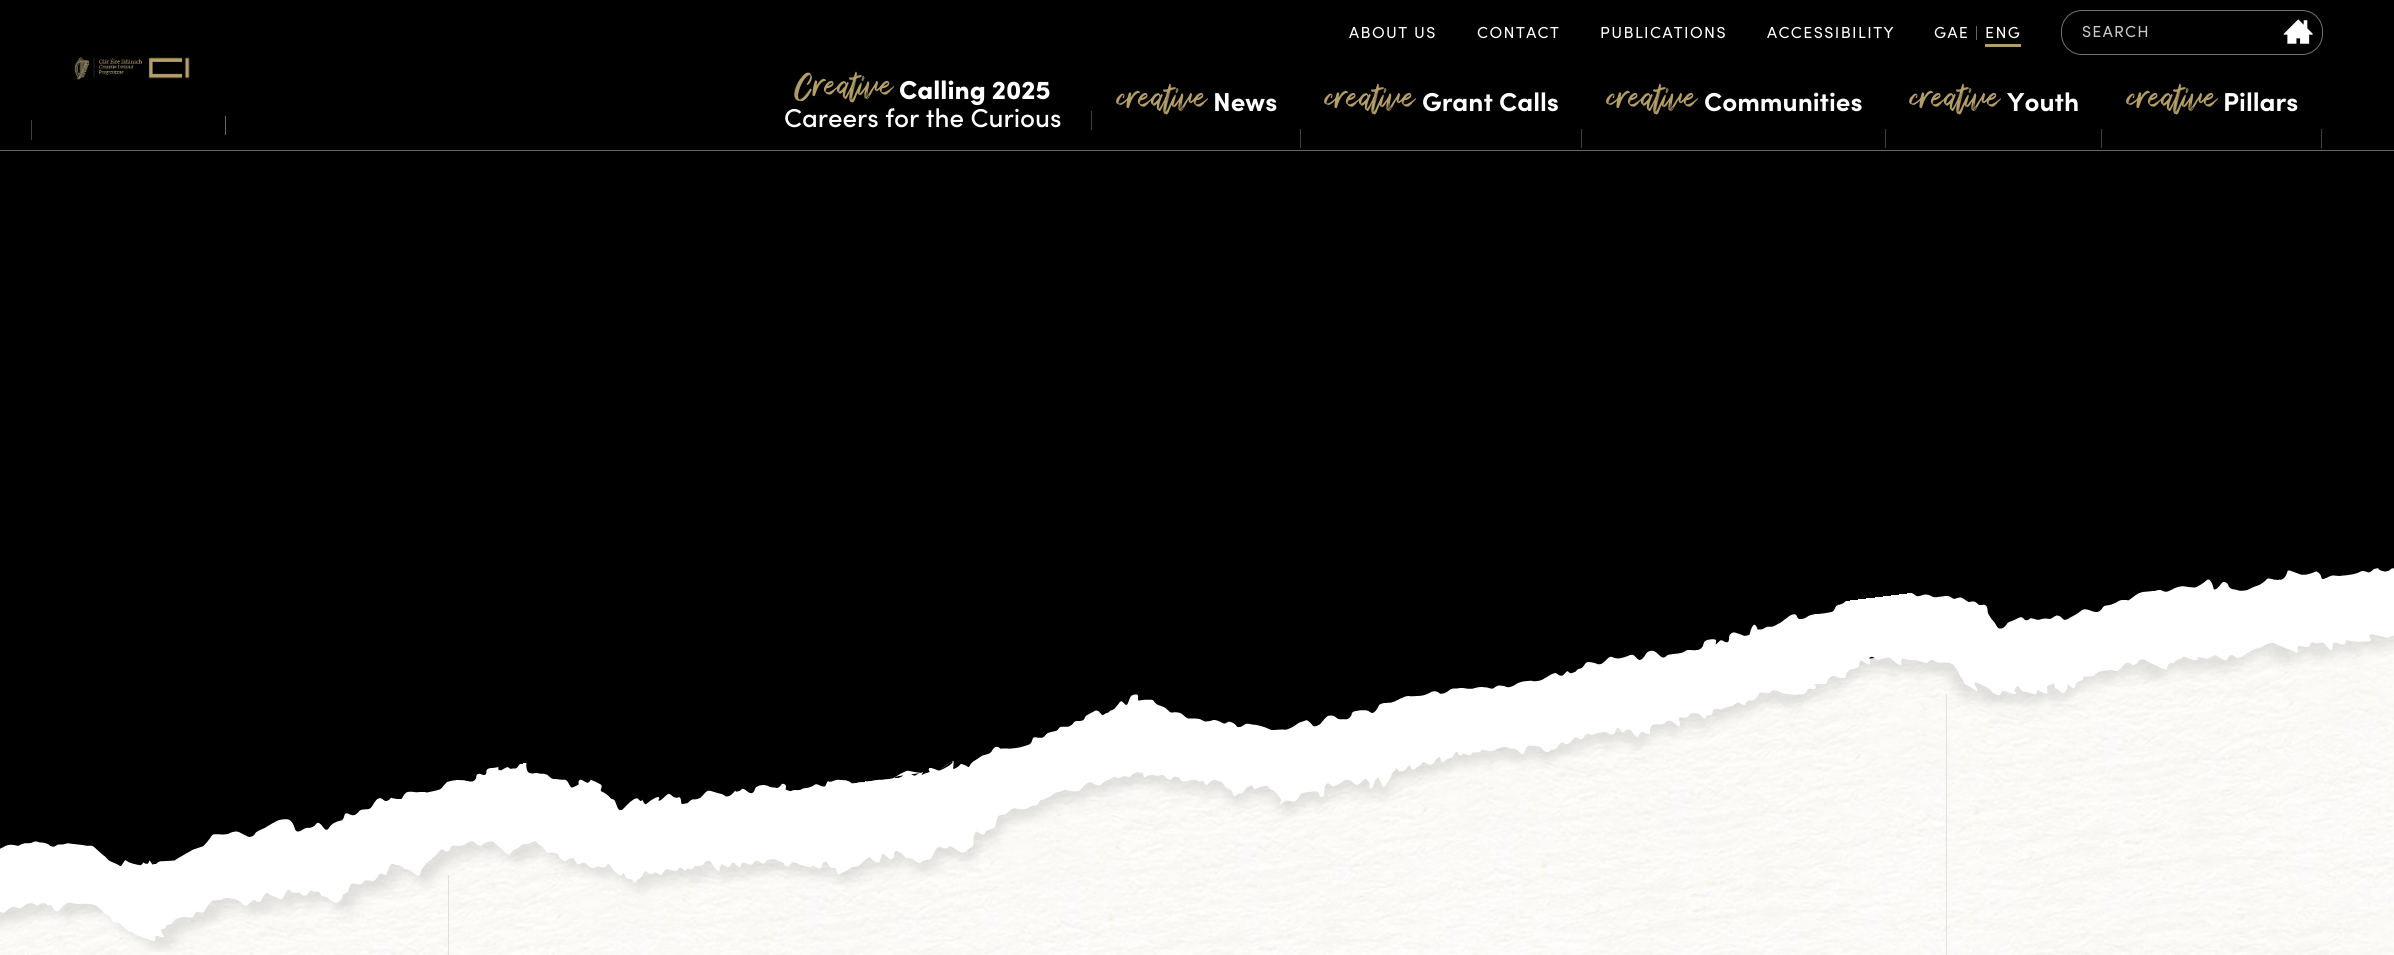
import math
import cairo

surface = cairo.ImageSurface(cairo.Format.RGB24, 2394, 955)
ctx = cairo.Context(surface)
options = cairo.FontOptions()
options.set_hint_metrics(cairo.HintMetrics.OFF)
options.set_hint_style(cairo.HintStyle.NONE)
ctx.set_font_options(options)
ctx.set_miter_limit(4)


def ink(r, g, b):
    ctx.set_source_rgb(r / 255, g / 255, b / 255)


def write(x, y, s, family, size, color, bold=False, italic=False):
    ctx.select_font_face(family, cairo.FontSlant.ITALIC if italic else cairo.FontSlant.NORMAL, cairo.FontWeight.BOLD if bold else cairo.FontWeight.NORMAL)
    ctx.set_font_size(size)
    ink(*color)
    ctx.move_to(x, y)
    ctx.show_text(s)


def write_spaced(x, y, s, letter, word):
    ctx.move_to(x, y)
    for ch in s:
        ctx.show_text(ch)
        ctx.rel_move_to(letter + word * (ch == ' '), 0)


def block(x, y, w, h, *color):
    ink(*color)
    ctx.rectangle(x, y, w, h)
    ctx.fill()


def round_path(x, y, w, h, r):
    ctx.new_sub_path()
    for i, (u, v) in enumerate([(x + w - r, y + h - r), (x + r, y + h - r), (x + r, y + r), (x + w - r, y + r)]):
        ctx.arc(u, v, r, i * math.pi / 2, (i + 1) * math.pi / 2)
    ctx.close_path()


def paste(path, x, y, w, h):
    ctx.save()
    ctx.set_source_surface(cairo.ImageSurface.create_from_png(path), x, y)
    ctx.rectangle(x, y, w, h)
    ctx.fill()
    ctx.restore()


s1 = dict(family="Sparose", size=28, color=(179, 158, 106))
s2 = dict(family="Sofia Black", size=26, color=(255, 255, 255))
s3 = dict(family="Sofia Medium", size=26, color=(255, 255, 255))
s4 = dict(family="Sofia", size=26, color=(255, 255, 255), bold=True)

ink(0, 0, 0)
ctx.paint()
block(31, 120, 1, 20, 125, 125, 125)
ctx.set_source_rgba(0, 0, 0, 0.5)
ctx.rectangle(31, 120, 1, 20)
ctx.fill()
block(0, 150, 2394, 1, 103, 103, 103)
paste("pic1.png", 74, 57, 116, 23)
block(225, 116, 1, 19, 103, 103, 103)
ctx.select_font_face("Sofia")
ctx.set_font_size(16)
ink(255, 255, 255)
write_spaced(1349, 38, "ABOUT US", 1.4, 0)
write_spaced(1477, 38, "CONTACT", 1.4, 0)
write_spaced(1600, 38, "PUBLICATIONS", 1.4, 0)
write_spaced(1767, 38, "ACCESSIBILITY", 1.4, 0)
write_spaced(1934, 38, "GAE", 1.4, 0)
block(1976, 26, 1, 14, 102, 102, 102)
block(1985, 44, 36, 3, 179, 158, 106)
ink(255, 255, 255)
write_spaced(1985, 38, "ENG", 1.4, 0)
round_path(2061.5, 10.5, 261, 44, 20.5)
ink(112, 112, 112)
ctx.set_line_width(1)
ctx.stroke()
ink(202, 202, 202)
write_spaced(2082, 37, "SEARCH", 1.25, 0)
paste("pic2.png", 2283, 19, 30, 25)
write(794, 99, "Creative", **s1)
write(899, 99, "Calling 2025", **s2)
write(784, 127, "Careers for the Curious", **s3)
block(1091, 111, 1, 19, 65, 65, 65)
write(1117, 111, "creative", **s1)
write(1213, 111, "News", **s4)
block(1300, 129, 1, 19, 65, 65, 65)
write(1325, 111, "creative", **s1)
write(1422, 111, "Grant Calls", **s4)
block(1581, 129, 1, 19, 65, 65, 65)
write(1607, 111, "creative", **s1)
write(1704, 111, "Communities", **s4)
block(1885, 129, 1, 19, 65, 65, 65)
write(1910, 111, "creative", **s1)
write(2007, 111, "Youth", **s4)
block(2101, 129, 1, 19, 65, 65, 65)
write(2127, 111, "creative", **s1)
write(2223, 111, "Pillars", **s4)
block(2321, 129, 1, 19, 65, 65, 65)
paste("pic3.png", 2020, 909, 374, 46)
paste("pic4.png", 0, 634, 2394, 321)
paste("pic5.png", 0, 568, 2394, 384)
block(448, 875, 1, 80, 224, 224, 223)
block(1946, 694, 1, 261, 224, 224, 223)
surface.write_to_png("screenshot.png")
